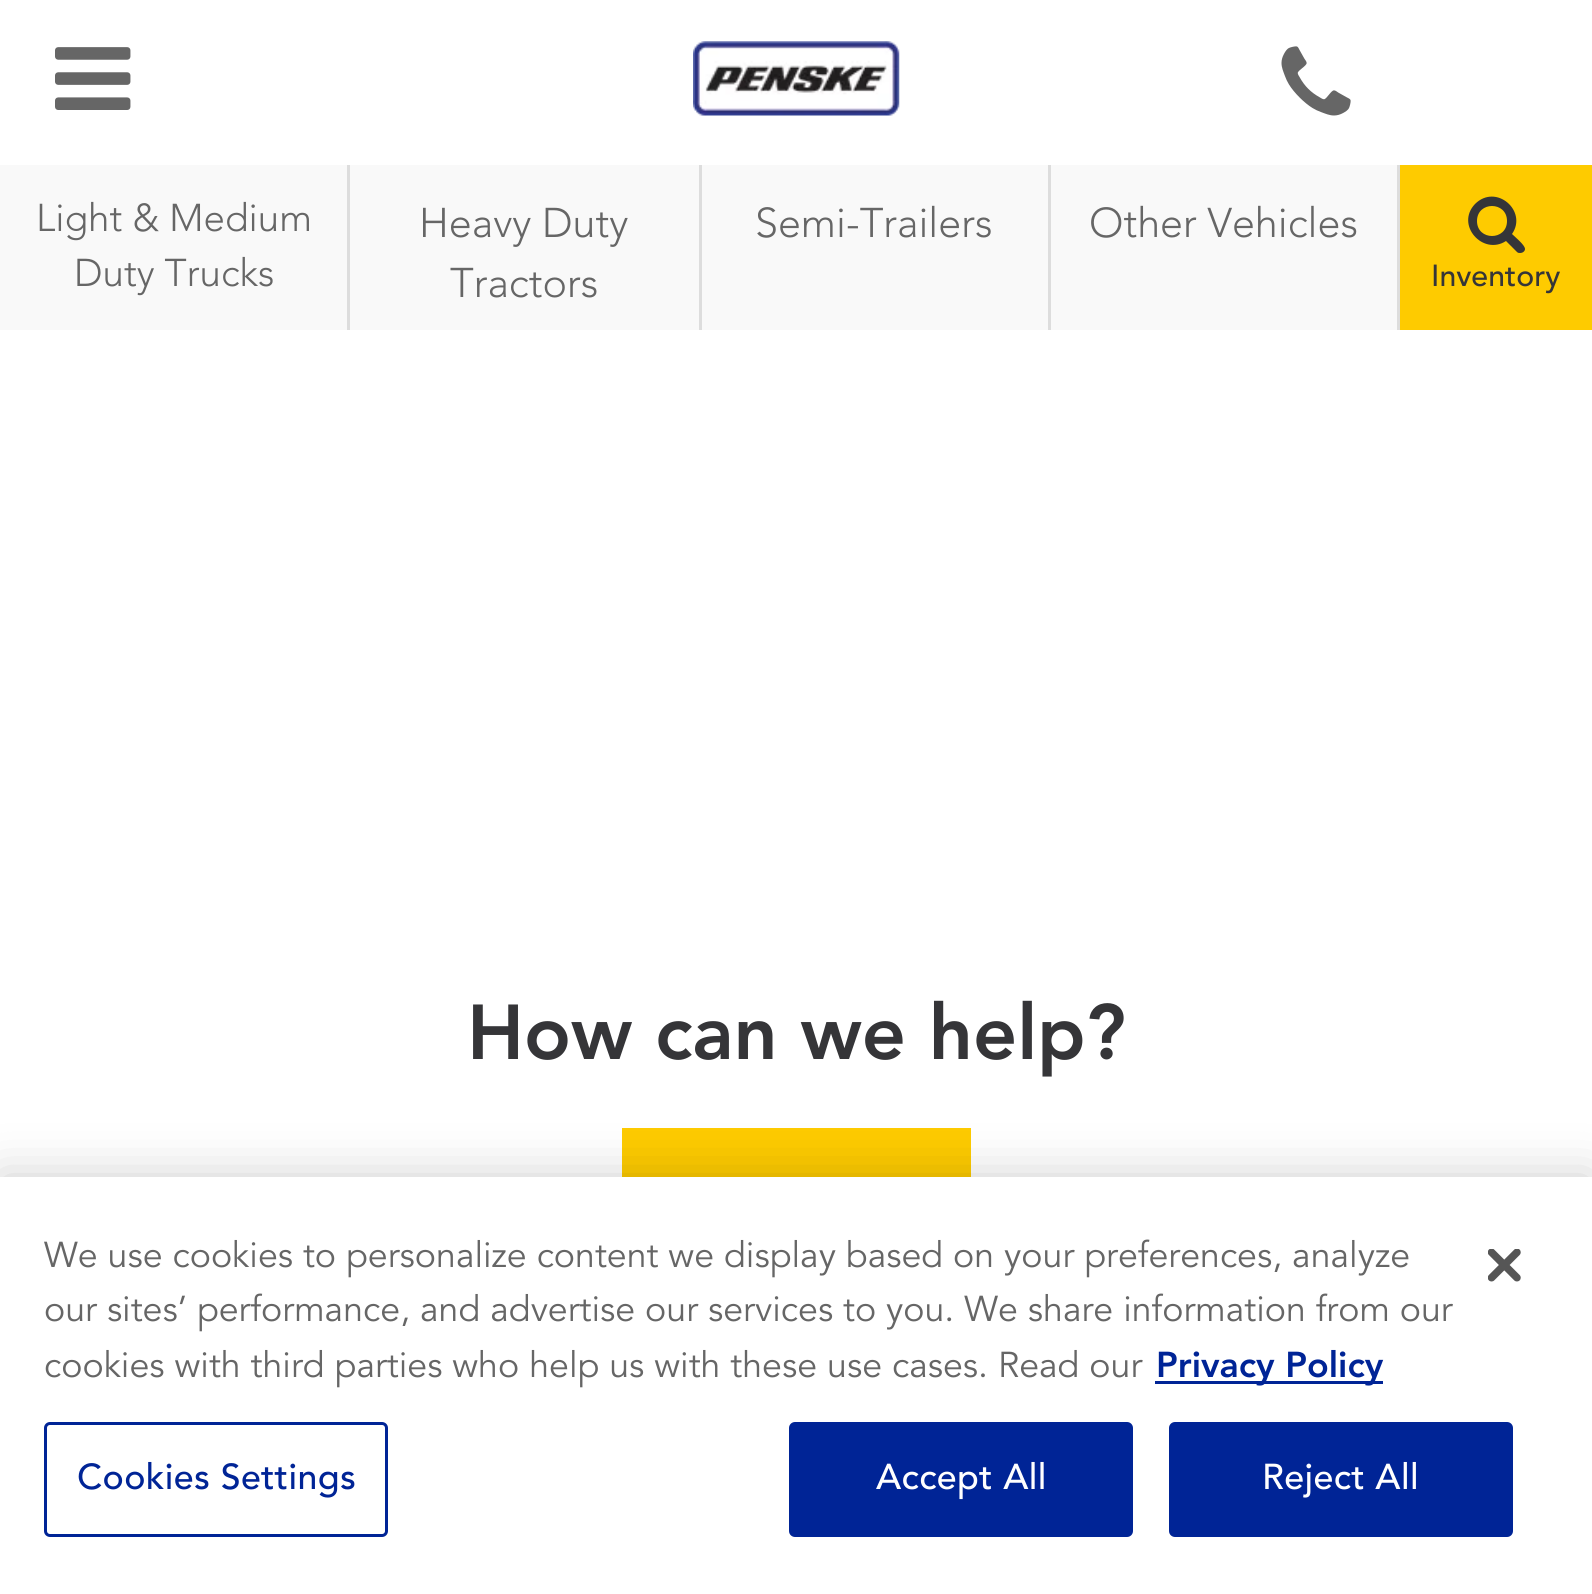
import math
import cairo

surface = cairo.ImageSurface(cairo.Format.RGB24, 1592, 1594)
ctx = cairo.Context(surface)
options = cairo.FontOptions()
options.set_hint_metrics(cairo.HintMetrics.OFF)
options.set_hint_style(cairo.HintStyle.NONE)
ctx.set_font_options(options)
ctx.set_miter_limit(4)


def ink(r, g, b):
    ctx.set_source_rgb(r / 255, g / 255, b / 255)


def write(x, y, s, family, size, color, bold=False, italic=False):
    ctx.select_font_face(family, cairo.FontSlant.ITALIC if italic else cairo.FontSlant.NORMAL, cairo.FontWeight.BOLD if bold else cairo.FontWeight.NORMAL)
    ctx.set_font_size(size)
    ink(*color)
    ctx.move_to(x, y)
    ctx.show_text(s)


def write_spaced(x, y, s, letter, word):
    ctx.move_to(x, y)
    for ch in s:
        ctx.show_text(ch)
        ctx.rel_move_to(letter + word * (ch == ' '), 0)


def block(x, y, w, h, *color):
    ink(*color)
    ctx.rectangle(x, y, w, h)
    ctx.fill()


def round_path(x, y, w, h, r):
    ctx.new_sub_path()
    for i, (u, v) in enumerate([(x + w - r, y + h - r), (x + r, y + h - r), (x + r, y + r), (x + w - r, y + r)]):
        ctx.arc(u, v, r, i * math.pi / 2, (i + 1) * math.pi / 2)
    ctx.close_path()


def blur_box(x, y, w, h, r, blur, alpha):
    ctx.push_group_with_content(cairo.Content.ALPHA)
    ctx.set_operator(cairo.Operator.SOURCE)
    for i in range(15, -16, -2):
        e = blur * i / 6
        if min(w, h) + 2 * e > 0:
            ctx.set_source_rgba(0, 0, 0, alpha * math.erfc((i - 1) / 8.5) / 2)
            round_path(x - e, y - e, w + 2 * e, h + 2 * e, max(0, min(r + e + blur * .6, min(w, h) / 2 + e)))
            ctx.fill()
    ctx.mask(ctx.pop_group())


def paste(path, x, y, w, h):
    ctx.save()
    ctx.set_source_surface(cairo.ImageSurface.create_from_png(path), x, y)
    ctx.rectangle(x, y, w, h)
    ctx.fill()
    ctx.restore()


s1 = dict(family="Avenir Light", size=38.5, color=(102, 102, 102))
s2 = dict(family="Avenir Light", size=41.25, color=(102, 102, 102))
s3 = dict(family="Avenir Medium", size=30.25, color=(53, 53, 56))
s4 = dict(family="Avenir Black", size=77, color=(53, 53, 56))
s5 = dict(family="Avenir", size=35.75, color=(102, 102, 102))
s6 = dict(family="Avenir Black", size=35.75, color=(0, 36, 150))

ink(255, 255, 255)
ctx.paint()
paste("pic1.png", 55, 47, 76, 63)
paste("pic2.png", 693, 41, 207, 75)
block(0, 165, 1397, 165, 249, 249, 249)
paste("pic3.png", 1281, 46, 70, 70)
write(36, 231, "Light & Medium", **s1)
write(74, 286, "Duty Trucks", **s1)
block(347, 165, 3, 165, 221, 221, 221)
write(419, 237, "Heavy Duty", **s2)
write(450, 297, "Tractors", **s2)
block(699, 165, 3, 165, 221, 221, 221)
write(755, 237, "Semi-Trailers", **s2)
block(1048, 165, 3, 165, 221, 221, 221)
write(1089, 237, "Other Vehicles", **s2)
block(1400, 165, 192, 165, 254, 203, 0)
block(1397, 165, 3, 165, 221, 221, 221)
ink(53, 53, 56)
ctx.new_path()
ctx.move_to(1507, 221)
ctx.curve_to(1507, 241, 1477, 241, 1477, 221)
ctx.curve_to(1477, 201, 1507, 201, 1507, 221)
ctx.close_path()
ctx.move_to(1525, 249)
ctx.curve_to(1525, 245, 1515, 237, 1512, 234)
ctx.curve_to(1528, 211, 1496, 183, 1475, 204)
ctx.curve_to(1455, 225, 1483, 256, 1506, 241)
ctx.line_to(1517, 252)
ctx.curve_to(1518, 253, 1519, 253, 1520, 253)
ctx.curve_to(1523, 253, 1525, 251, 1525, 249)
ctx.close_path()
ctx.fill()
write(1431, 286, "Inventory", **s3)
write(467, 1059, "How can we help?", **s4)
block(622, 1128, 349, 49, 254, 203, 0)
ink(0, 0, 0)
blur_box(0, 1177, 1592, 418, 0, 25, 0.2)
block(0, 1177, 1592, 417, 255, 255, 255)
write(44, 1267, "We use cookies to personalize content we display based on your preferences, analyze", **s5)
write(44, 1321, "our sites’ performance, and advertise our services to you. We share information from our", **s5)
write(44, 1377, "cookies with third parties who help us with these use cases. Read our", **s5)
block(1155, 1381, 228, 3, 0, 36, 150)
write(1156, 1377, "Privacy Policy", **s6)
round_path(45.5, 1423.5, 341, 112, 4.5)
ctx.set_line_width(3)
ctx.stroke()
ctx.select_font_face("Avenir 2 Medium")
write_spaced(77, 1489, "Cookies Settings", 0.4, 0)
round_path(790.5, 1423.5, 341, 112, 4.5)
ctx.fill_preserve()
ctx.stroke()
ink(255, 255, 255)
write_spaced(876, 1489, "Accept All", 0.4, 0)
ink(0, 36, 150)
round_path(1170.5, 1423.5, 341, 112, 4.5)
ctx.fill_preserve()
ctx.stroke()
ink(255, 255, 255)
write_spaced(1262, 1489, "Reject All", 0.4, 0)
paste("pic4.png", 1488, 1249, 33, 33)
surface.write_to_png("screenshot.png")
